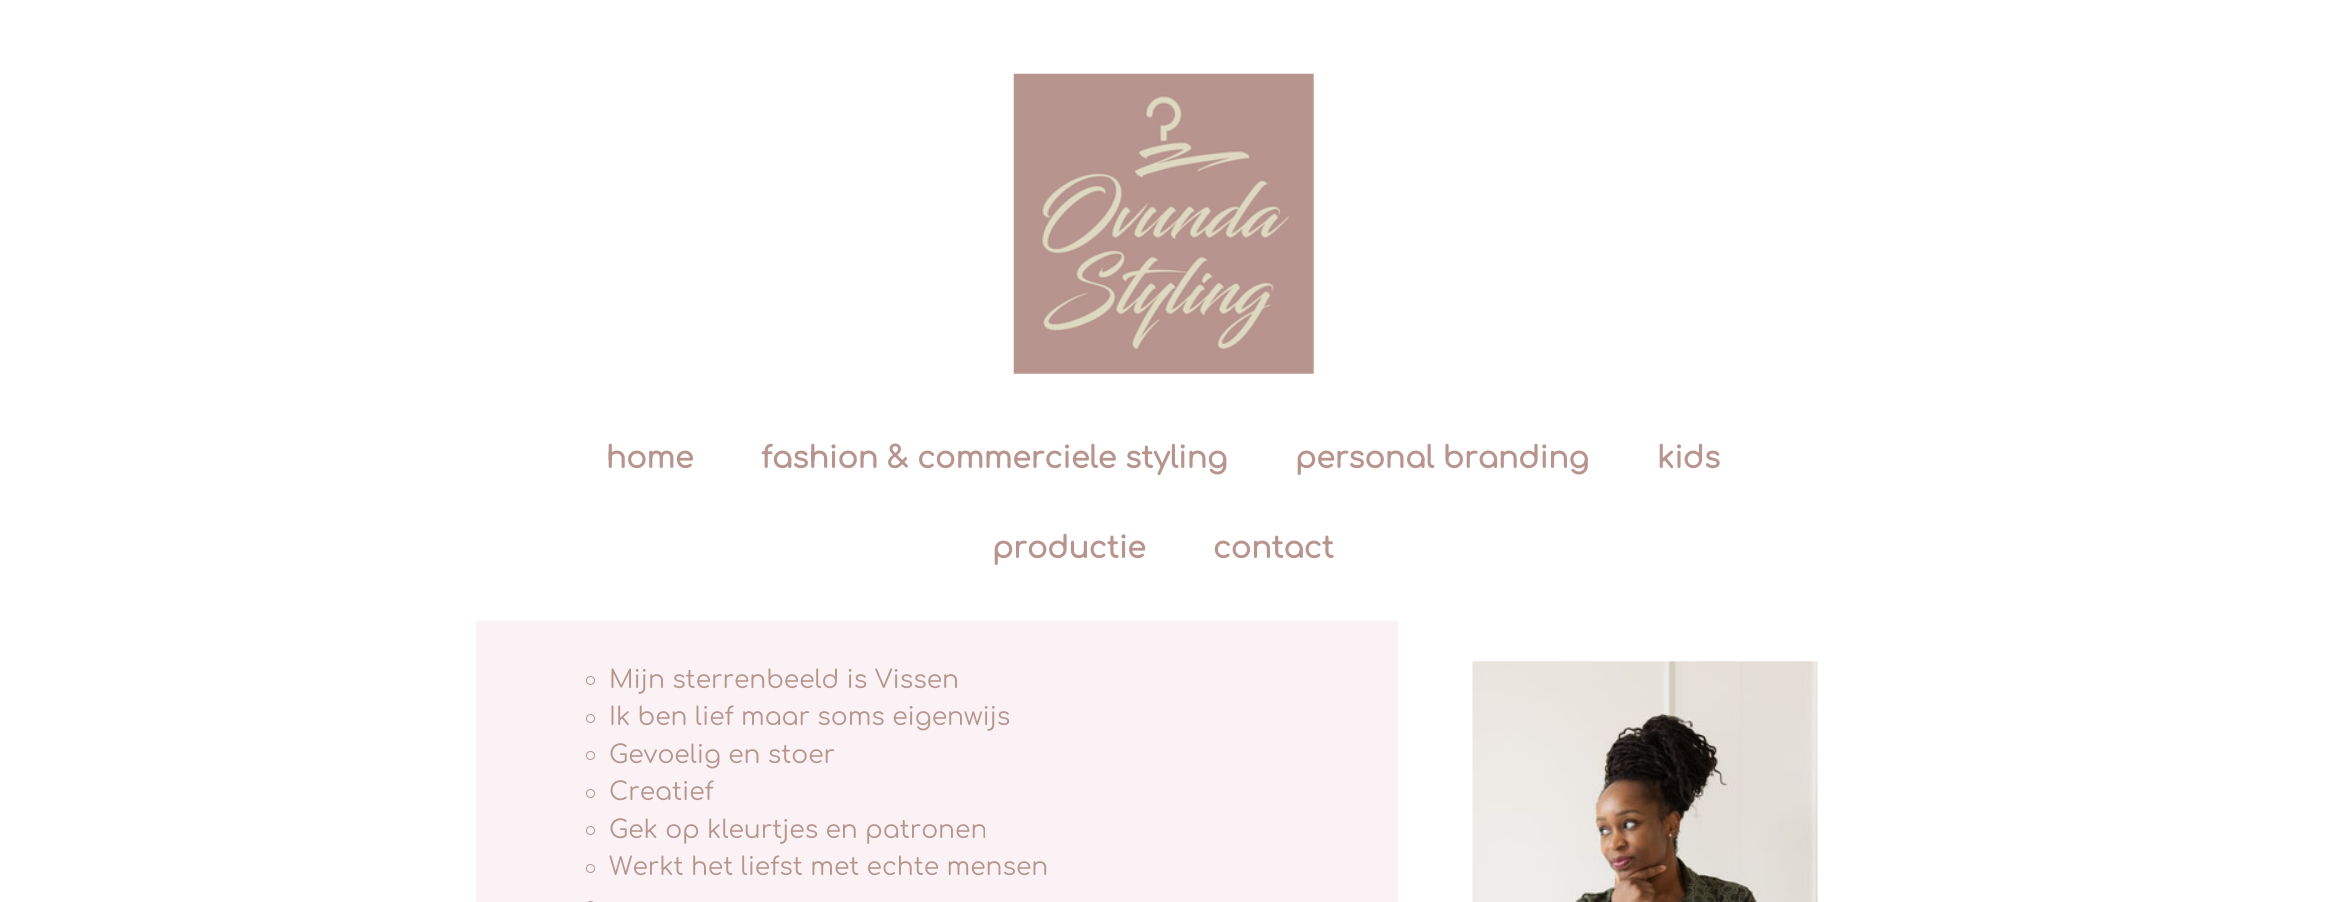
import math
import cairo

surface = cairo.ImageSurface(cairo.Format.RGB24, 2326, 902)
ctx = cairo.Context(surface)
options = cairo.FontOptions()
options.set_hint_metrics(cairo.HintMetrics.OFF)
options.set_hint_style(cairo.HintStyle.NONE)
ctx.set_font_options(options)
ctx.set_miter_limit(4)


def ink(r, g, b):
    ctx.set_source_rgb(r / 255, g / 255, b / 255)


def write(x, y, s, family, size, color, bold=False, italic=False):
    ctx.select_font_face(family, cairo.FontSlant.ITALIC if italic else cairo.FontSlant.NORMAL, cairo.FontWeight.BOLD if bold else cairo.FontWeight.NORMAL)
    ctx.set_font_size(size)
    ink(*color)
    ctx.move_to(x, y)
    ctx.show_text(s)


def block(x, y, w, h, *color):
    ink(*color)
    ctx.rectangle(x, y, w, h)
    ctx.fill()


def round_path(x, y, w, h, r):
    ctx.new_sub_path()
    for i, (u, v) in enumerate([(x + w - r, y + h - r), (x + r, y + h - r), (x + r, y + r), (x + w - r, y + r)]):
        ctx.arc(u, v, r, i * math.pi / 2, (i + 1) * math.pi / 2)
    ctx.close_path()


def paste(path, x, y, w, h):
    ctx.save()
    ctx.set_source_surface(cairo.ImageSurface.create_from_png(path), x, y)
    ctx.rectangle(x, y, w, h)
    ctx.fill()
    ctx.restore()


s1 = dict(family="Comfortaa", size=30, color=(183, 148, 141), bold=True)
s2 = dict(family="Comfortaa", size=25, color=(183, 148, 141))

ink(255, 255, 255)
ctx.paint()
paste("pic1.png", 1013, 73, 301, 301)
write(606, 468, "home", **s1)
write(761, 468, "fashion & commerciele styling", **s1)
write(1295, 468, "personal branding", **s1)
write(1657, 468, "kids", **s1)
write(992, 558, "productie", **s1)
write(1213, 558, "contact", **s1)
block(476, 621, 922, 281, 250, 242, 245)
ctx.new_path()
ctx.arc(590.5, 680.5, 4, 0, 2 * math.pi)
ink(183, 148, 141)
ctx.set_line_width(1)
ctx.stroke()
write(609, 688, "Mijn sterrenbeeld is Vissen", **s2)
ctx.new_path()
ctx.arc(590.5, 718.5, 4, 0, 2 * math.pi)
ctx.stroke()
write(609, 725, "Ik ben lief maar soms eigenwijs", **s2)
ctx.new_path()
ctx.arc(590.5, 755.5, 4, 0, 2 * math.pi)
ctx.stroke()
write(609, 763, "Gevoelig en stoer", **s2)
ctx.new_path()
ctx.arc(590.5, 793.5, 4, 0, 2 * math.pi)
ctx.stroke()
write(609, 800, "Creatief", **s2)
ctx.new_path()
ctx.arc(590.5, 830.5, 4, 0, 2 * math.pi)
ctx.stroke()
write(609, 838, "Gek op kleurtjes en patronen", **s2)
ctx.new_path()
ctx.arc(590.5, 868.5, 4, 0, 2 * math.pi)
ctx.stroke()
write(609, 875, "Werkt het liefst met echte mensen", **s2)
round_path(586.5, 901.5, 8, 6, 4)
ctx.stroke()
paste("pic2.png", 1472, 661, 346, 241)
surface.write_to_png("screenshot.png")
